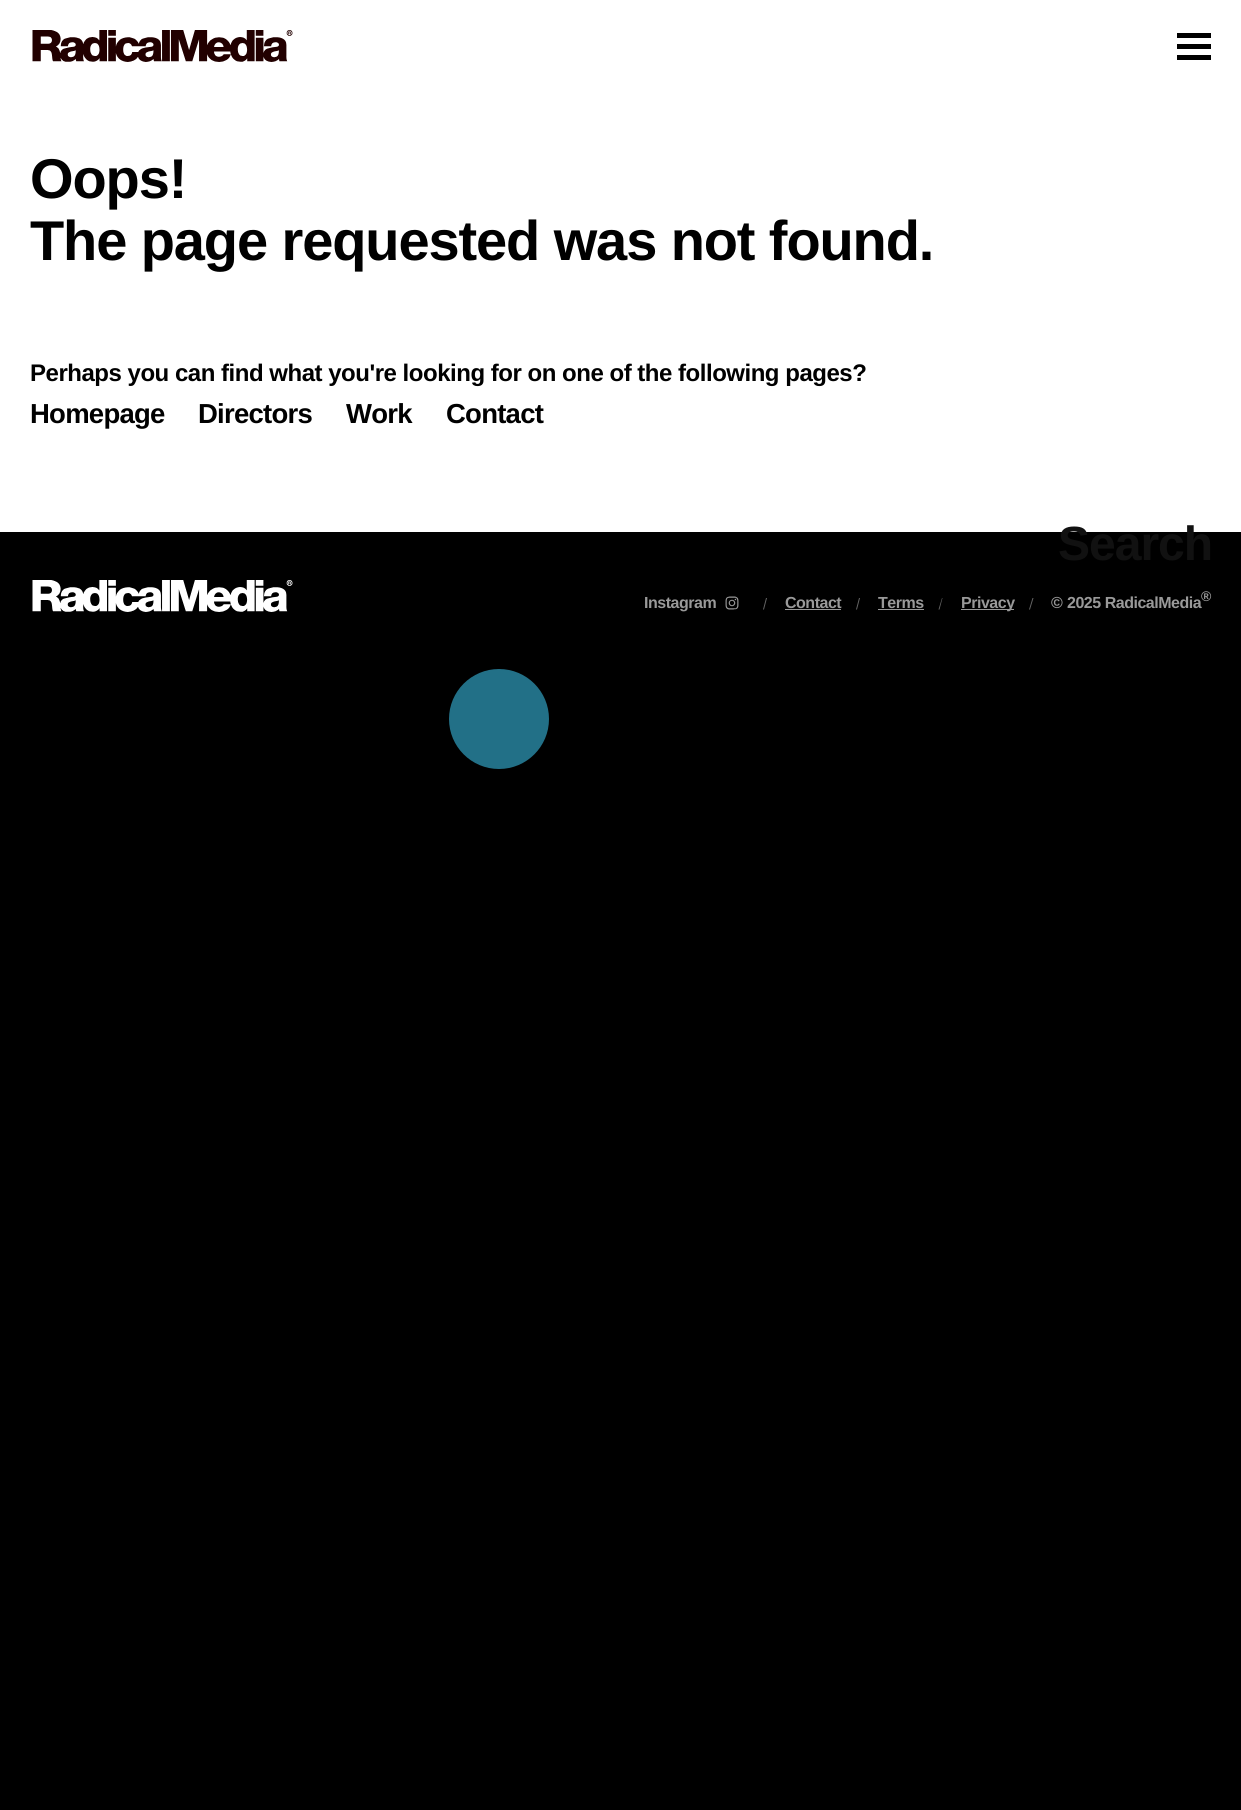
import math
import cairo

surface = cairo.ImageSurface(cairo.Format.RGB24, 1241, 1810)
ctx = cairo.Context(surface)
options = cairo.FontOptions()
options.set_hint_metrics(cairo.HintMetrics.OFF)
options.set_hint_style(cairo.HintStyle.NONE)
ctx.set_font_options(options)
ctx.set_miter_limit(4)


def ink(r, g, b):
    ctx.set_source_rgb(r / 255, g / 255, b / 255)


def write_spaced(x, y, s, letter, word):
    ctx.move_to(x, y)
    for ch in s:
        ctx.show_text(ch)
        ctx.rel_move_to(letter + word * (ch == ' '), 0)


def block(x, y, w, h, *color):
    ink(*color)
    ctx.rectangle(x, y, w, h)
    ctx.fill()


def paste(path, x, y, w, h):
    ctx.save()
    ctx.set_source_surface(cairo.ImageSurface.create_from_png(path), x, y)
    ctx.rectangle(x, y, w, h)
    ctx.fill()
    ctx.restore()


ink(0, 0, 0)
ctx.paint()
block(0, 0, 1241, 532, 255, 255, 255)
ctx.select_font_face("Liberation Sans", cairo.FontSlant.NORMAL, cairo.FontWeight.BOLD)
ctx.set_font_size(56)
ink(0, 0, 0)
write_spaced(30, 198, "Oops!", -1.1, 0)
write_spaced(30, 260, "The page requested was not found.", -1.1, 0)
ctx.set_font_size(24)
write_spaced(30, 381, "Perhaps you can find what you're looking for on one of the following pages?", -0.48, 0)
ctx.set_font_size(27.5)
write_spaced(30, 423, "Homepage", -0.75, 0)
write_spaced(198, 423, "Directors", -0.75, 0)
write_spaced(346, 423, "Work", -0.75, 0)
write_spaced(446, 423, "Contact", -0.75, 0)
paste("pic1.png", 32, 30, 261, 32)
block(1177, 33, 34, 5, 0, 0, 0)
block(1177, 44, 34, 5, 0, 0, 0)
block(1177, 55, 34, 5, 0, 0, 0)
ctx.set_font_size(48)
ink(17, 17, 17)
write_spaced(1058, 560, "Search", -1, 0)
paste("pic2.png", 32, 580, 261, 32)
ctx.set_font_size(16)
ink(153, 153, 153)
write_spaced(644, 608, "Instagram", -0.48, 0)
paste("pic3.png", 725, 596, 14, 14)
ink(102, 102, 102)
ctx.new_path()
ctx.move_to(766, 598)
ctx.line_to(767, 598)
ctx.line_to(764, 609.5)
ctx.line_to(763, 609.5)
ctx.close_path()
ctx.fill()
ink(153, 153, 153)
write_spaced(785, 608, "Contact", -0.48, 0)
block(785, 609, 56, 1, 153, 153, 153)
ink(102, 102, 102)
ctx.new_path()
ctx.move_to(859, 598)
ctx.line_to(860, 598)
ctx.line_to(857, 609.5)
ctx.line_to(856, 609.5)
ctx.close_path()
ctx.fill()
ink(153, 153, 153)
write_spaced(878, 608, "Terms", -0.48, 0)
block(878, 609, 46, 1, 153, 153, 153)
ink(102, 102, 102)
ctx.new_path()
ctx.move_to(942, 598)
ctx.line_to(942.5, 598)
ctx.line_to(939.5, 609.5)
ctx.line_to(938.5, 609.5)
ctx.close_path()
ctx.fill()
block(961, 609, 53, 1, 153, 153, 153)
write_spaced(961, 608, "Privacy", -0.48, 0)
ink(102, 102, 102)
ctx.new_path()
ctx.move_to(1032.5, 598)
ctx.line_to(1033.5, 598)
ctx.line_to(1030, 609.5)
ctx.line_to(1029, 609.5)
ctx.close_path()
ctx.fill()
ink(153, 153, 153)
write_spaced(1051, 608, "©", -0.48, 0)
write_spaced(1067, 608, "2025 RadicalMedia", -0.48, 0)
ctx.set_font_size(14)
write_spaced(1201, 601, "®", -0.48, 0)
ink(34, 112, 135)
ctx.new_path()
ctx.arc(499, 719, 50, 0, 2 * math.pi)
ctx.fill()
surface.write_to_png("screenshot.png")
